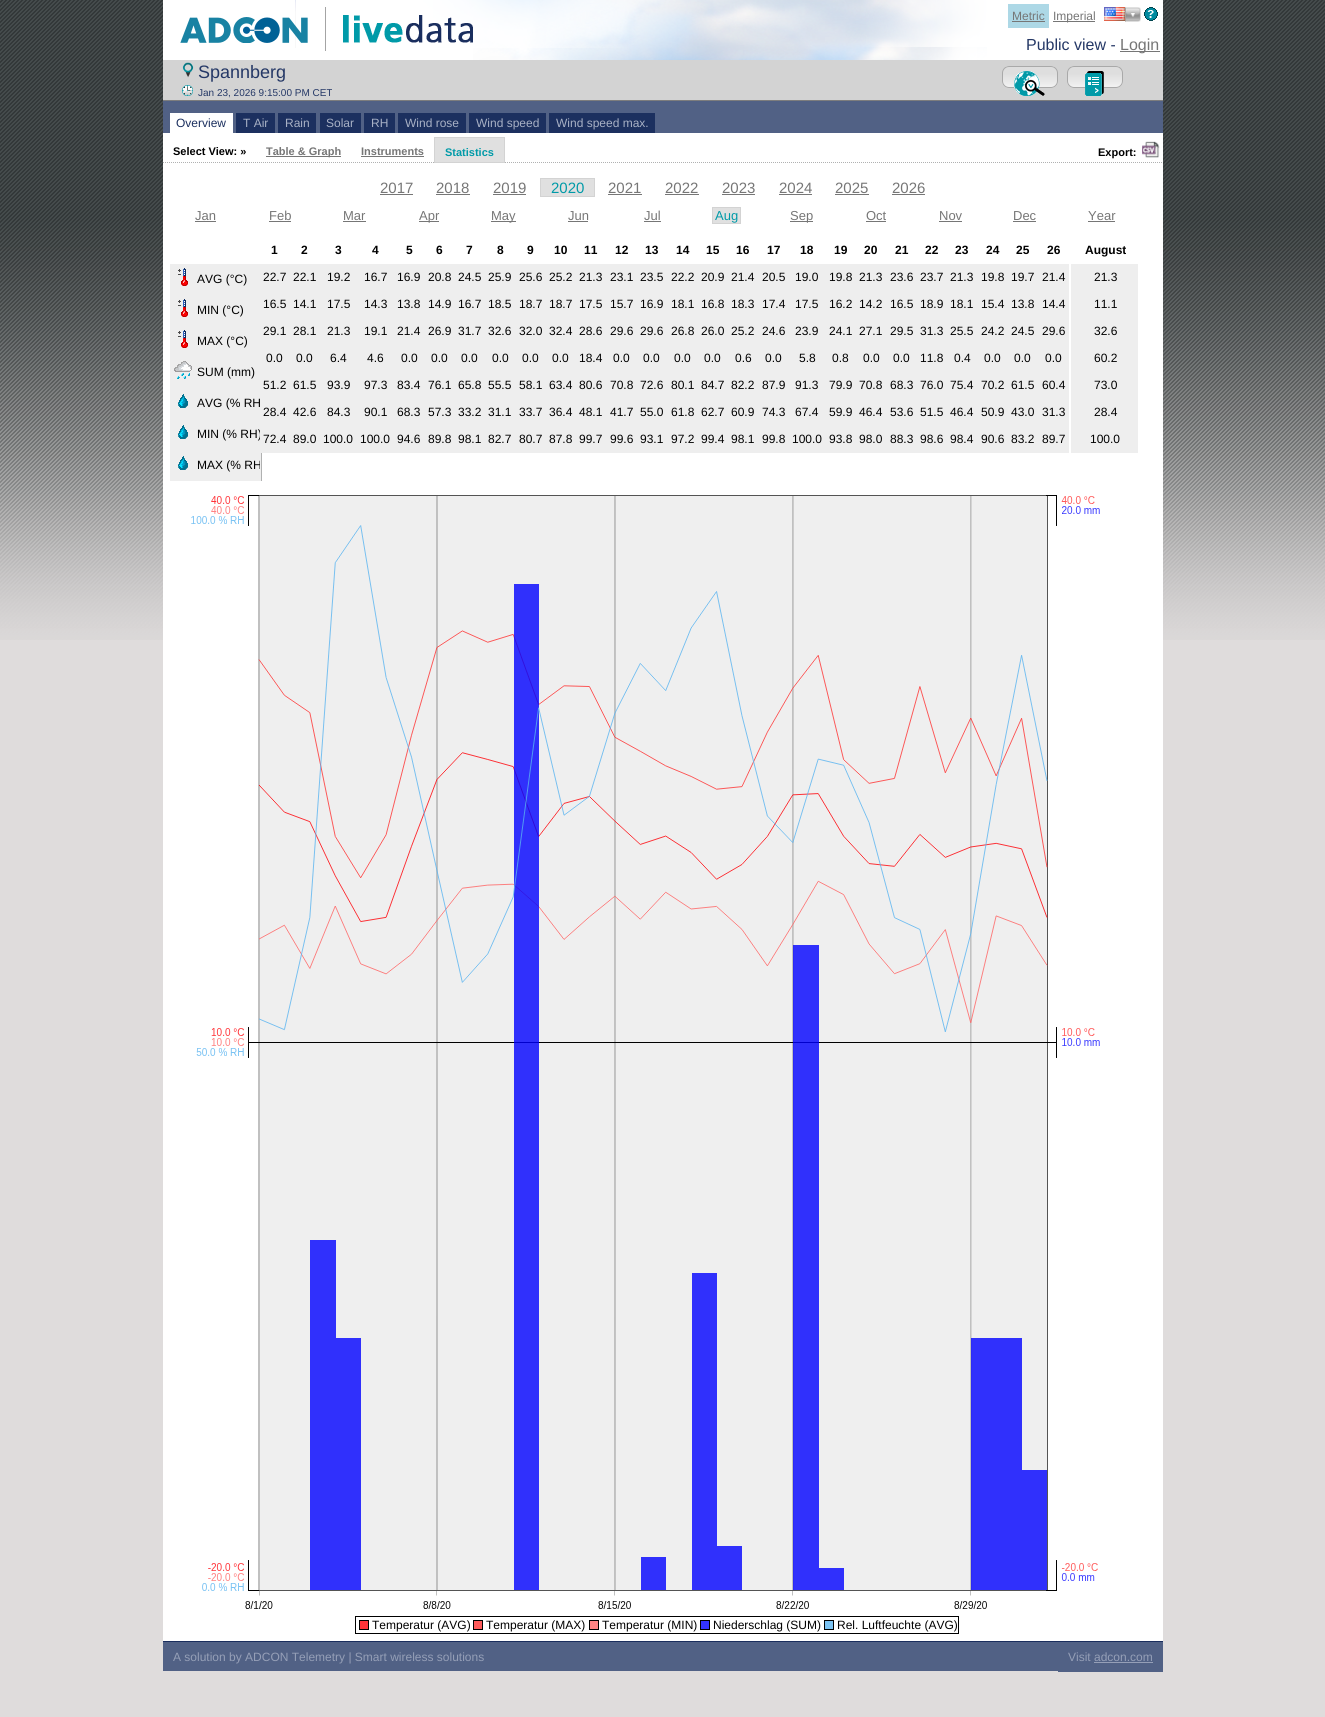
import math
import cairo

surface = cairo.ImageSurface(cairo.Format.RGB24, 1325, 1717)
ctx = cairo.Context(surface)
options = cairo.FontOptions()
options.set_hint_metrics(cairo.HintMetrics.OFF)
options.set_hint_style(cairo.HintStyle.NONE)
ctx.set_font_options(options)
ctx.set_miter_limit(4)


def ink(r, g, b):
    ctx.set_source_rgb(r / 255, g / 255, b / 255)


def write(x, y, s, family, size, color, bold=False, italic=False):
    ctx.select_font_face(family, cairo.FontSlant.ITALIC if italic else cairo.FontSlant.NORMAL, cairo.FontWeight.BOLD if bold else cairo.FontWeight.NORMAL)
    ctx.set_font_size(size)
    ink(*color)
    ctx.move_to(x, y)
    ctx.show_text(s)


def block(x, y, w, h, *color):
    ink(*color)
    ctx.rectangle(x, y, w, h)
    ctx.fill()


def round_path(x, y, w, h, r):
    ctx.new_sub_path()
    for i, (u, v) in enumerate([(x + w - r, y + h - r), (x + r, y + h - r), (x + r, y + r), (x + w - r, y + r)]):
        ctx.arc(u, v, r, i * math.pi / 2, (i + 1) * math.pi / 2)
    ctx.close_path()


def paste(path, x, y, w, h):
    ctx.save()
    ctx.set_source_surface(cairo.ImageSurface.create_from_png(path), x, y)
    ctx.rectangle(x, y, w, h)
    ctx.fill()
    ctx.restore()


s1 = dict(family="Liberation Sans", size=12, color=(118, 118, 118))
s2 = dict(family="Liberation Sans", size=16, color=(37, 56, 102))
s3 = dict(family="Liberation Sans", size=16, color=(118, 118, 118))
s4 = dict(family="Liberation Sans", size=18, color=(37, 56, 102))
s5 = dict(family="Liberation Sans", size=10, color=(37, 56, 102))
s6 = dict(family="Liberation Sans", size=12, color=(28, 48, 95))
s7 = dict(family="Liberation Sans", size=12, color=(168, 177, 197))
s8 = dict(family="Liberation Sans", size=11, color=(0, 0, 0), bold=True)
s9 = dict(family="Liberation Sans", size=11, color=(118, 118, 118), bold=True)
s10 = dict(family="Liberation Sans", size=11, color=(0, 154, 168), bold=True)
s11 = dict(family="Liberation Sans", size=15, color=(118, 118, 118))
s12 = dict(family="Liberation Sans", size=15, color=(0, 154, 168))
s13 = dict(family="Liberation Sans", size=13, color=(118, 118, 118))
s14 = dict(family="Liberation Sans", size=13, color=(0, 154, 168))
s15 = dict(family="Liberation Sans", size=12, color=(0, 0, 0))
s16 = dict(family="Liberation Sans", size=12, color=(0, 0, 0), bold=True)
s17 = dict(family="Liberation Sans", size=12, color=(149, 159, 183))

ink(223, 220, 220)
ctx.paint()
paste("pic1.png", 0, 0, 1325, 640)
block(163, 0, 1000, 1641, 255, 255, 255)
paste("pic2.png", 295, 0, 692, 60)
paste("pic3.png", 180, 17, 128, 26)
paste("pic4.png", 343, 15, 130, 28)
block(325, 7, 1, 44, 164, 164, 164)
block(1008, 4, 41, 24, 173, 216, 230)
write(1012, 20, "Metric", **s1)
block(1012, 21, 33, 1, 118, 118, 118)
block(1053, 21, 42, 1, 118, 118, 118)
write(1053, 20, "Imperial", **s1)
paste("pic5.png", 1104, 7, 21, 14)
paste("pic6.png", 1125, 7, 16, 15)
paste("pic7.png", 1144, 7, 14, 14)
block(163, 60, 1000, 40, 211, 211, 211)
write(1026, 50, "Public view -", **s2)
block(1120, 51, 40, 1, 118, 118, 118)
write(1120, 50, "Login", **s3)
paste("pic8.png", 182, 62, 12, 16)
write(198, 78, "Spannberg", **s4)
paste("pic9.png", 182, 85, 11, 11)
write(198, 96, "Jan 23, 2026 9:15:00 PM CET", **s5)
paste("pic10.png", 1002, 66, 56, 22)
round_path(1002.5, 66.5, 55, 21, 6.5)
ink(169, 169, 169)
ctx.set_line_width(1)
ctx.stroke()
paste("pic11.png", 1014, 71, 31, 25)
paste("pic10.png", 1067, 66, 56, 22)
round_path(1067.5, 66.5, 55, 21, 6.5)
ctx.stroke()
paste("pic12.png", 1085, 71, 19, 25)
block(163, 101, 1000, 32, 81, 97, 133)
block(163, 100, 1000, 1, 125, 125, 125)
block(170, 113, 63, 20, 255, 255, 255)
write(176, 127, "Overview", **s6)
block(236, 113, 39, 20, 28, 48, 95)
write(243, 127, "T Air", **s7)
block(278, 113, 38, 20, 28, 48, 95)
write(285, 127, "Rain", **s7)
block(320, 113, 41, 20, 28, 48, 95)
write(326, 127, "Solar", **s7)
block(364, 113, 31, 20, 28, 48, 95)
write(371, 127, "RH", **s7)
block(398, 113, 68, 20, 28, 48, 95)
write(405, 127, "Wind rose", **s7)
block(469, 113, 77, 20, 28, 48, 95)
write(476, 127, "Wind speed", **s7)
block(549, 113, 106, 20, 28, 48, 95)
write(556, 127, "Wind speed max.", **s7)
ctx.new_path()
ctx.move_to(163, 162.5)
ctx.line_to(1163, 162.5)
ink(176, 177, 177)
ctx.set_dash([1, 1])
ctx.stroke()
write(173, 155, "Select View: »", **s8)
block(266, 156, 75, 1, 118, 118, 118)
write(266, 155, "Table & Graph", **s9)
write(361, 155, "Instruments", **s9)
block(361, 156, 63, 1, 118, 118, 118)
ink(224, 224, 224)
ctx.rectangle(434.5, 137.5, 70, 25)
ctx.fill_preserve()
ink(211, 211, 211)
ctx.set_dash([])
ctx.stroke()
write(445, 156, "Statistics", **s10)
write(1098, 156, "Export:", **s8)
paste("pic13.png", 1142, 141, 18, 17)
write(380, 193, "2017", **s11)
block(380, 194, 33, 1, 118, 118, 118)
write(436, 193, "2018", **s11)
block(436, 194, 34, 1, 118, 118, 118)
write(493, 193, "2019", **s11)
block(493, 194, 33, 1, 118, 118, 118)
ink(224, 224, 224)
ctx.rectangle(540.5, 178.5, 54, 18)
ctx.fill_preserve()
ink(211, 211, 211)
ctx.stroke()
write(551, 193, "2020", **s12)
write(608, 193, "2021", **s11)
block(608, 194, 34, 1, 118, 118, 118)
write(665, 193, "2022", **s11)
block(665, 194, 34, 1, 118, 118, 118)
write(722, 193, "2023", **s11)
block(722, 194, 33, 1, 118, 118, 118)
write(779, 193, "2024", **s11)
block(779, 194, 33, 1, 118, 118, 118)
write(835, 193, "2025", **s11)
block(835, 194, 34, 1, 118, 118, 118)
write(892, 193, "2026", **s11)
block(892, 194, 33, 1, 118, 118, 118)
write(195, 220, "Jan", **s13)
block(195, 221, 21, 1, 118, 118, 118)
write(269, 220, "Feb", **s13)
block(269, 221, 22, 1, 118, 118, 118)
write(343, 220, "Mar", **s13)
block(343, 221, 23, 1, 118, 118, 118)
block(419, 221, 20, 1, 118, 118, 118)
write(419, 220, "Apr", **s13)
block(491, 221, 25, 1, 118, 118, 118)
write(491, 220, "May", **s13)
write(568, 220, "Jun", **s13)
block(568, 221, 20, 1, 118, 118, 118)
write(644, 220, "Jul", **s13)
block(644, 221, 17, 1, 118, 118, 118)
ink(224, 224, 224)
ctx.rectangle(712.5, 207.5, 28, 16)
ctx.fill_preserve()
ink(211, 211, 211)
ctx.stroke()
write(715, 220, "Aug", **s14)
block(790, 221, 23, 1, 118, 118, 118)
write(790, 220, "Sep", **s13)
write(866, 220, "Oct", **s13)
block(866, 221, 20, 1, 118, 118, 118)
write(939, 220, "Nov", **s13)
block(939, 221, 23, 1, 118, 118, 118)
write(1013, 220, "Dec", **s13)
block(1013, 221, 23, 1, 118, 118, 118)
write(1088, 220, "Year", **s13)
block(1088, 221, 27, 1, 118, 118, 118)
block(170, 264, 90, 186, 238, 238, 238)
paste("pic14.png", 178, 268, 10, 18)
write(197, 283, "AVG (°C)", **s15)
paste("pic14.png", 178, 299, 10, 18)
write(197, 314, "MIN (°C)", **s15)
paste("pic14.png", 178, 330, 10, 18)
write(197, 345, "MAX (°C)", **s15)
paste("pic15.png", 174, 361, 18, 18)
write(197, 376, "SUM (mm)", **s15)
paste("pic16.png", 178, 394, 10, 14)
write(197, 407, "AVG (% RH", **s15)
paste("pic16.png", 178, 425, 10, 14)
write(197, 438, "MIN (% RH)", **s15)
block(261, 449, 1, 32, 176, 177, 177)
block(170, 450, 91, 31, 238, 238, 238)
paste("pic16.png", 178, 456, 10, 14)
ctx.save()
ctx.rectangle(193, 453, 67, 24)
ctx.clip()
write(197, 469, "MAX (% RH", **s15)
ctx.restore()
write(271, 254, "1", **s16)
write(301, 254, "2", **s16)
write(335, 254, "3", **s16)
write(372, 254, "4", **s16)
write(406, 254, "5", **s16)
write(436, 254, "6", **s16)
write(466, 254, "7", **s16)
write(497, 254, "8", **s16)
write(527, 254, "9", **s16)
write(554, 254, "10", **s16)
write(584, 254, "11", **s16)
write(615, 254, "12", **s16)
write(645, 254, "13", **s16)
write(676, 254, "14", **s16)
write(706, 254, "15", **s16)
write(736, 254, "16", **s16)
write(767, 254, "17", **s16)
write(800, 254, "18", **s16)
write(834, 254, "19", **s16)
write(864, 254, "20", **s16)
write(895, 254, "21", **s16)
write(925, 254, "22", **s16)
write(955, 254, "23", **s16)
write(986, 254, "24", **s16)
write(1016, 254, "25", **s16)
write(1047, 254, "26", **s16)
block(260, 264, 809, 27, 238, 238, 238)
write(263, 281, "22.7", **s15)
write(293, 281, "22.1", **s15)
write(327, 281, "19.2", **s15)
write(364, 281, "16.7", **s15)
write(397, 281, "16.9", **s15)
write(428, 281, "20.8", **s15)
write(458, 281, "24.5", **s15)
write(488, 281, "25.9", **s15)
write(519, 281, "25.6", **s15)
write(549, 281, "25.2", **s15)
write(579, 281, "21.3", **s15)
write(610, 281, "23.1", **s15)
write(640, 281, "23.5", **s15)
write(671, 281, "22.2", **s15)
write(701, 281, "20.9", **s15)
write(731, 281, "21.4", **s15)
write(762, 281, "20.5", **s15)
write(795, 281, "19.0", **s15)
write(829, 281, "19.8", **s15)
write(859, 281, "21.3", **s15)
write(890, 281, "23.6", **s15)
write(920, 281, "23.7", **s15)
write(950, 281, "21.3", **s15)
write(981, 281, "19.8", **s15)
write(1011, 281, "19.7", **s15)
write(1042, 281, "21.4", **s15)
block(260, 291, 809, 27, 238, 238, 238)
write(263, 308, "16.5", **s15)
write(293, 308, "14.1", **s15)
write(327, 308, "17.5", **s15)
write(364, 308, "14.3", **s15)
write(397, 308, "13.8", **s15)
write(428, 308, "14.9", **s15)
write(458, 308, "16.7", **s15)
write(488, 308, "18.5", **s15)
write(519, 308, "18.7", **s15)
write(549, 308, "18.7", **s15)
write(579, 308, "17.5", **s15)
write(610, 308, "15.7", **s15)
write(640, 308, "16.9", **s15)
write(671, 308, "18.1", **s15)
write(701, 308, "16.8", **s15)
write(731, 308, "18.3", **s15)
write(762, 308, "17.4", **s15)
write(795, 308, "17.5", **s15)
write(829, 308, "16.2", **s15)
write(859, 308, "14.2", **s15)
write(890, 308, "16.5", **s15)
write(920, 308, "18.9", **s15)
write(950, 308, "18.1", **s15)
write(981, 308, "15.4", **s15)
write(1011, 308, "13.8", **s15)
write(1042, 308, "14.4", **s15)
block(260, 318, 809, 27, 238, 238, 238)
write(263, 335, "29.1", **s15)
write(293, 335, "28.1", **s15)
write(327, 335, "21.3", **s15)
write(364, 335, "19.1", **s15)
write(397, 335, "21.4", **s15)
write(428, 335, "26.9", **s15)
write(458, 335, "31.7", **s15)
write(488, 335, "32.6", **s15)
write(519, 335, "32.0", **s15)
write(549, 335, "32.4", **s15)
write(579, 335, "28.6", **s15)
write(610, 335, "29.6", **s15)
write(640, 335, "29.6", **s15)
write(671, 335, "26.8", **s15)
write(701, 335, "26.0", **s15)
write(731, 335, "25.2", **s15)
write(762, 335, "24.6", **s15)
write(795, 335, "23.9", **s15)
write(829, 335, "24.1", **s15)
write(859, 335, "27.1", **s15)
write(890, 335, "29.5", **s15)
write(920, 335, "31.3", **s15)
write(950, 335, "25.5", **s15)
write(981, 335, "24.2", **s15)
write(1011, 335, "24.5", **s15)
write(1042, 335, "29.6", **s15)
block(260, 345, 809, 27, 238, 238, 238)
write(266, 362, "0.0", **s15)
write(296, 362, "0.0", **s15)
write(330, 362, "6.4", **s15)
write(367, 362, "4.6", **s15)
write(401, 362, "0.0", **s15)
write(431, 362, "0.0", **s15)
write(461, 362, "0.0", **s15)
write(492, 362, "0.0", **s15)
write(522, 362, "0.0", **s15)
write(552, 362, "0.0", **s15)
write(579, 362, "18.4", **s15)
write(613, 362, "0.0", **s15)
write(643, 362, "0.0", **s15)
write(674, 362, "0.0", **s15)
write(704, 362, "0.0", **s15)
write(735, 362, "0.6", **s15)
write(765, 362, "0.0", **s15)
write(799, 362, "5.8", **s15)
write(832, 362, "0.8", **s15)
write(863, 362, "0.0", **s15)
write(893, 362, "0.0", **s15)
write(920, 362, "11.8", **s15)
write(954, 362, "0.4", **s15)
write(984, 362, "0.0", **s15)
write(1014, 362, "0.0", **s15)
write(1045, 362, "0.0", **s15)
block(260, 372, 809, 27, 238, 238, 238)
write(263, 389, "51.2", **s15)
write(293, 389, "61.5", **s15)
write(327, 389, "93.9", **s15)
write(364, 389, "97.3", **s15)
write(397, 389, "83.4", **s15)
write(428, 389, "76.1", **s15)
write(458, 389, "65.8", **s15)
write(488, 389, "55.5", **s15)
write(519, 389, "58.1", **s15)
write(549, 389, "63.4", **s15)
write(579, 389, "80.6", **s15)
write(610, 389, "70.8", **s15)
write(640, 389, "72.6", **s15)
write(671, 389, "80.1", **s15)
write(701, 389, "84.7", **s15)
write(731, 389, "82.2", **s15)
write(762, 389, "87.9", **s15)
write(795, 389, "91.3", **s15)
write(829, 389, "79.9", **s15)
write(859, 389, "70.8", **s15)
write(890, 389, "68.3", **s15)
write(920, 389, "76.0", **s15)
write(950, 389, "75.4", **s15)
write(981, 389, "70.2", **s15)
write(1011, 389, "61.5", **s15)
write(1042, 389, "60.4", **s15)
block(260, 399, 809, 27, 238, 238, 238)
write(263, 416, "28.4", **s15)
write(293, 416, "42.6", **s15)
write(327, 416, "84.3", **s15)
write(364, 416, "90.1", **s15)
write(397, 416, "68.3", **s15)
write(428, 416, "57.3", **s15)
write(458, 416, "33.2", **s15)
write(488, 416, "31.1", **s15)
write(519, 416, "33.7", **s15)
write(549, 416, "36.4", **s15)
write(579, 416, "48.1", **s15)
write(610, 416, "41.7", **s15)
write(640, 416, "55.0", **s15)
write(671, 416, "61.8", **s15)
write(701, 416, "62.7", **s15)
write(731, 416, "60.9", **s15)
write(762, 416, "74.3", **s15)
write(795, 416, "67.4", **s15)
write(829, 416, "59.9", **s15)
write(859, 416, "46.4", **s15)
write(890, 416, "53.6", **s15)
write(920, 416, "51.5", **s15)
write(950, 416, "46.4", **s15)
write(981, 416, "50.9", **s15)
write(1011, 416, "43.0", **s15)
write(1042, 416, "31.3", **s15)
block(260, 426, 809, 27, 238, 238, 238)
write(263, 443, "72.4", **s15)
write(293, 443, "89.0", **s15)
write(323, 443, "100.0", **s15)
write(360, 443, "100.0", **s15)
write(397, 443, "94.6", **s15)
write(428, 443, "89.8", **s15)
write(458, 443, "98.1", **s15)
write(488, 443, "82.7", **s15)
write(519, 443, "80.7", **s15)
write(549, 443, "87.8", **s15)
write(579, 443, "99.7", **s15)
write(610, 443, "99.6", **s15)
write(640, 443, "93.1", **s15)
write(671, 443, "97.2", **s15)
write(701, 443, "99.4", **s15)
write(731, 443, "98.1", **s15)
write(762, 443, "99.8", **s15)
write(792, 443, "100.0", **s15)
write(829, 443, "93.8", **s15)
write(859, 443, "98.0", **s15)
write(890, 443, "88.3", **s15)
write(920, 443, "98.6", **s15)
write(950, 443, "98.4", **s15)
write(981, 443, "90.6", **s15)
write(1011, 443, "83.2", **s15)
write(1042, 443, "89.7", **s15)
write(1085, 254, "August", **s16)
block(1071, 264, 67, 189, 238, 238, 238)
write(1094, 281, "21.3", **s15)
write(1094, 308, "11.1", **s15)
write(1094, 335, "32.6", **s15)
write(1094, 362, "60.2", **s15)
write(1094, 389, "73.0", **s15)
write(1094, 416, "28.4", **s15)
write(1090, 443, "100.0", **s15)
paste("pic17.png", 191, 495, 909, 1114)
paste("pic18.png", 258, 525, 790, 1065)
ctx.rectangle(355.5, 1616.5, 603, 17)
ctx.stroke()
ink(255, 51, 57)
ctx.rectangle(359.5, 1620.5, 9, 9)
ctx.fill_preserve()
ink(0, 0, 0)
ctx.stroke()
write(372, 1629, "Temperatur (AVG)", **s15)
ink(255, 91, 91)
ctx.rectangle(473.5, 1620.5, 9, 9)
ctx.fill_preserve()
ink(0, 0, 0)
ctx.stroke()
write(486, 1629, "Temperatur (MAX)", **s15)
ink(255, 131, 131)
ctx.rectangle(589.5, 1620.5, 9, 9)
ctx.fill_preserve()
ink(0, 0, 0)
ctx.stroke()
write(602, 1629, "Temperatur (MIN)", **s15)
ink(51, 51, 255)
ctx.rectangle(700.5, 1620.5, 9, 9)
ctx.fill_preserve()
ink(0, 0, 0)
ctx.stroke()
write(713, 1629, "Niederschlag (SUM)", **s15)
ink(123, 195, 243)
ctx.rectangle(824.5, 1620.5, 9, 9)
ctx.fill_preserve()
ink(0, 0, 0)
ctx.stroke()
write(837, 1629, "Rel. Luftfeuchte (AVG)", **s15)
block(163, 1642, 895, 29, 81, 97, 133)
block(163, 1641, 1000, 1, 26, 46, 94)
write(173, 1661, "A solution by ADCON Telemetry | Smart wireless solutions", **s17)
block(1058, 1642, 105, 30, 81, 97, 133)
write(1068, 1661, "Visit adcon.com", **s17)
block(1094, 1662, 59, 1, 149, 159, 183)
surface.write_to_png("screenshot.png")
